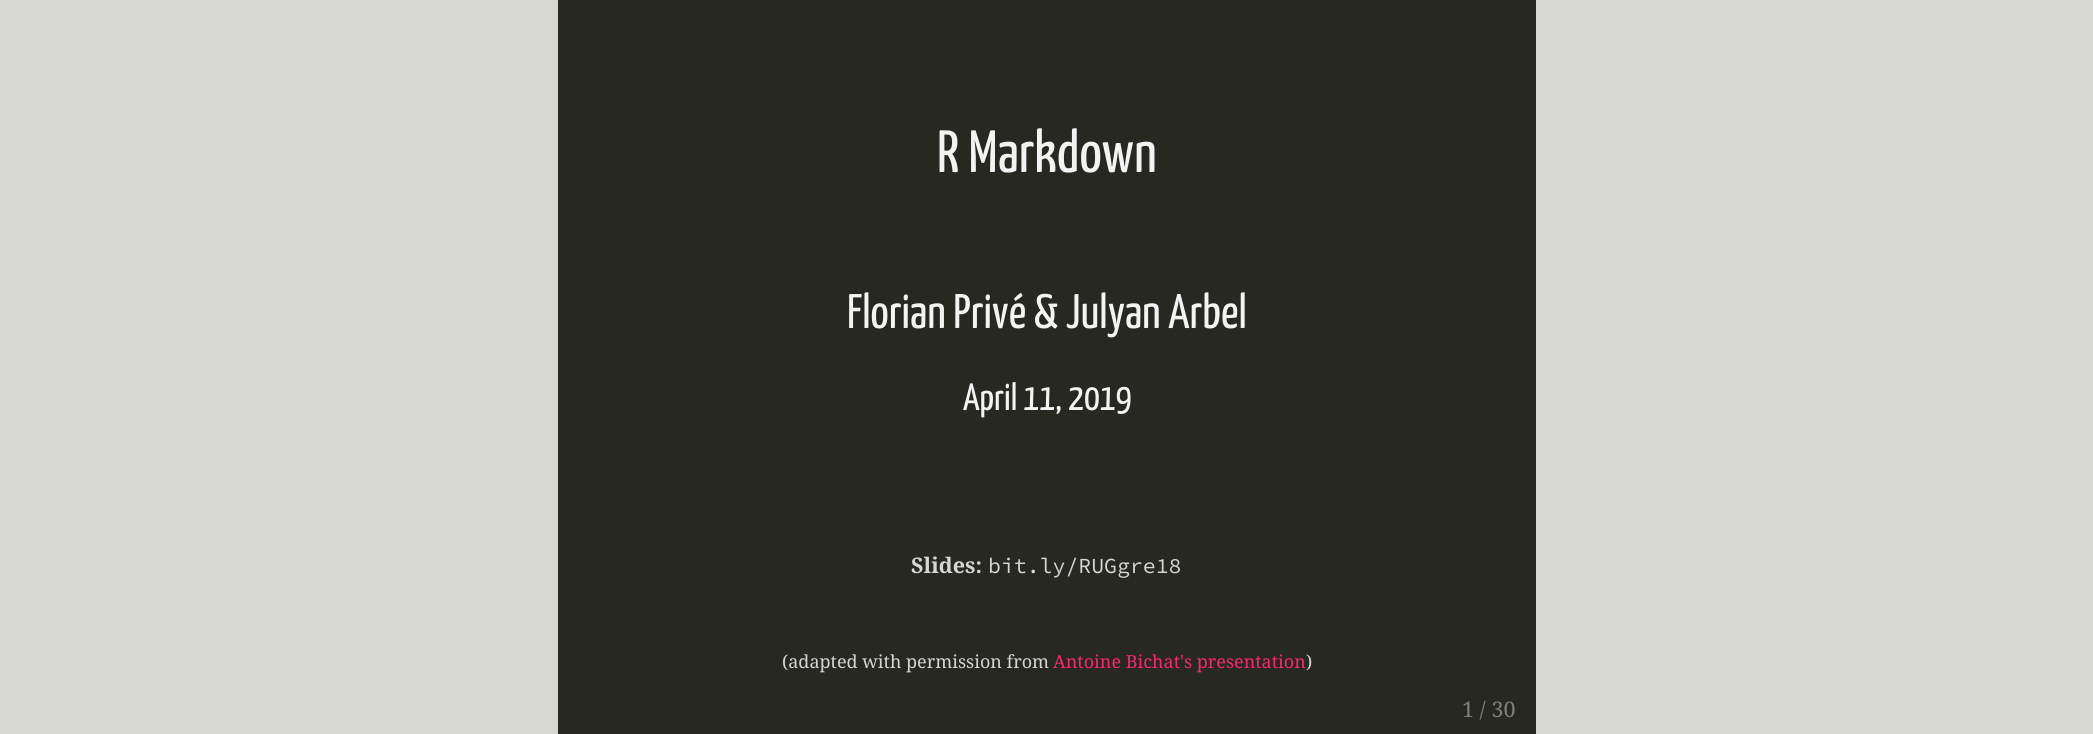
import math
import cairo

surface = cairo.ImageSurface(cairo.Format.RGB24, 2093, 734)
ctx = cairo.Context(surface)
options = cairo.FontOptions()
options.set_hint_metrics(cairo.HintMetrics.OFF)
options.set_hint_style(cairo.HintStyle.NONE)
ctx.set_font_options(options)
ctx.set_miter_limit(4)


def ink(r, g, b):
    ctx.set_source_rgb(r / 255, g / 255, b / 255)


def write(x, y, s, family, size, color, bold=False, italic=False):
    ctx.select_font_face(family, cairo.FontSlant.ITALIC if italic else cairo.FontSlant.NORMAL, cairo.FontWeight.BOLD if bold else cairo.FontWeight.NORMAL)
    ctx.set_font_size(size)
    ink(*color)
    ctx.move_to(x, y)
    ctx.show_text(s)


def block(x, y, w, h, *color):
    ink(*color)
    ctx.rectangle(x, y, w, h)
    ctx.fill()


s1 = dict(family="Yanone Kaffeesatz ExtraLight", size=59.5, color=(243, 243, 243))
s2 = dict(family="Yanone Kaffeesatz ExtraLight", size=48.5, color=(243, 243, 243))
s3 = dict(family="Yanone Kaffeesatz ExtraLight", size=38, color=(243, 243, 243))
s4 = dict(family="Droid Serif", size=21.5, color=(214, 214, 214), bold=True)
s5 = dict(family="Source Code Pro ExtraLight", size=21.5, color=(214, 214, 214))
s6 = dict(family="Droid Serif", size=18, color=(214, 214, 214))
s7 = dict(family="Droid Serif", size=18, color=(249, 38, 114))
s8 = dict(family="Droid Serif", size=21.5, color=(127, 127, 124))

ink(215, 216, 210)
ctx.paint()
block(558, 0, 978, 734, 39, 40, 34)
write(937, 172, "R Markdown", **s1)
write(847, 328, "Florian Privé & Julyan Arbel", **s2)
write(963, 410, "April 11, 2019", **s3)
write(911, 573, "Slides:", **s4)
write(988, 573, "bit.ly/RUGgre18", **s5)
write(782, 668, "(adapted with permission from", **s6)
write(1053, 668, "Antoine Bichat's presentation", **s7)
write(1306, 668, ")", **s6)
write(1462, 717, "1 / 30", **s8)
surface.write_to_png("screenshot.png")
